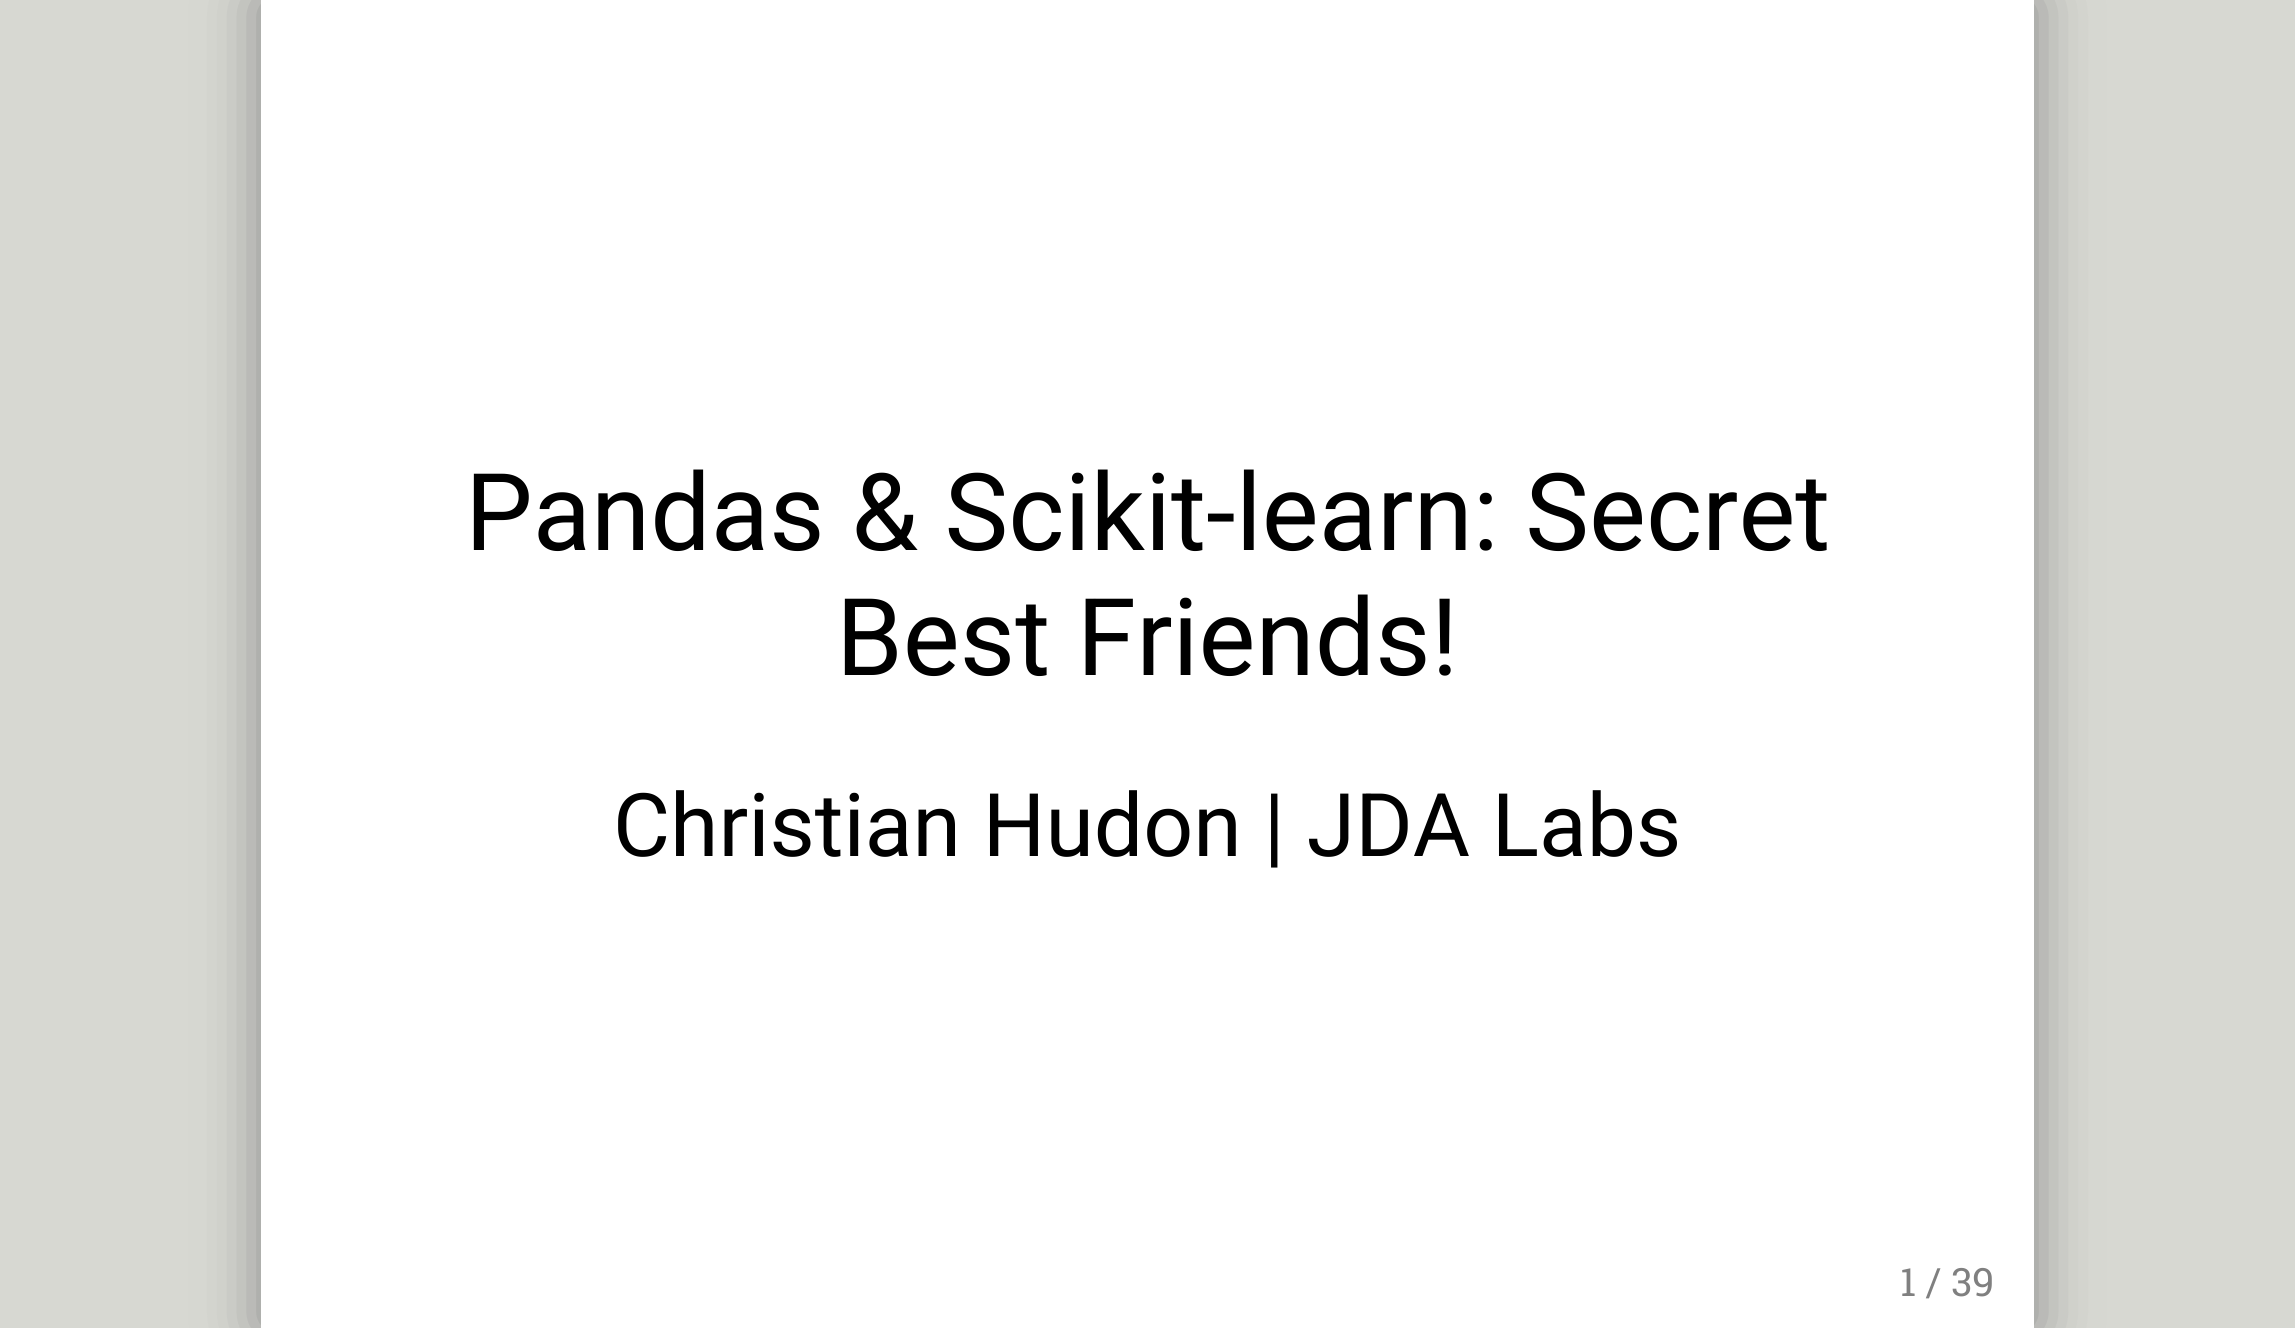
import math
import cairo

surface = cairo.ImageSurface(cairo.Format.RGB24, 2295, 1328)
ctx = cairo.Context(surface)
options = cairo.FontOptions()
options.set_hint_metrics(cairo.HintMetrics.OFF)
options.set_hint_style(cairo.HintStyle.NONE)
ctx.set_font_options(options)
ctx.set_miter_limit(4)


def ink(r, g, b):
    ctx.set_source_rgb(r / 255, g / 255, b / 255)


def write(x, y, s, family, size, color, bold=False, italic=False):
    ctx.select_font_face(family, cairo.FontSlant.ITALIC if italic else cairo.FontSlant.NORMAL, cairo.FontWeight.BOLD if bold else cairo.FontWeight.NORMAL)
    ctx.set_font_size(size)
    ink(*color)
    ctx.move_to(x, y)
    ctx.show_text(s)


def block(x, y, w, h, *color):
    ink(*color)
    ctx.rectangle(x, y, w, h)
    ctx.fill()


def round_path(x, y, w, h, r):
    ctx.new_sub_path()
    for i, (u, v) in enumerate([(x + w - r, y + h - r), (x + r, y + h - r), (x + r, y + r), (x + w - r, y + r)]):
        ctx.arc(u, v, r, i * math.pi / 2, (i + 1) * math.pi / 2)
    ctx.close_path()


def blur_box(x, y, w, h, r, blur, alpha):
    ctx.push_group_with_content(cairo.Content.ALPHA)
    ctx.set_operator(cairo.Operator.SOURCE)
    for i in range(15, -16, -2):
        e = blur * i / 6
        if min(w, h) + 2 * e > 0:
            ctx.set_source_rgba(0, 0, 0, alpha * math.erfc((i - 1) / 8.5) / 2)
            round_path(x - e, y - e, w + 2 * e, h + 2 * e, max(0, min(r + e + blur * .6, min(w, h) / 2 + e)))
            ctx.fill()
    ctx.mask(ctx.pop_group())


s1 = dict(family="Roboto", size=107.3, color=(0, 0, 0))
s2 = dict(family="Roboto", size=87.75, color=(0, 0, 0))
s3 = dict(family="Roboto Slab", size=39, color=(128, 128, 128))

ink(215, 216, 210)
ctx.paint()
ink(136, 136, 136)
blur_box(261, 0, 1773, 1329, 0, 29.5, 1)
block(261, 0, 1773, 1328, 255, 255, 255)
write(465, 550, "Pandas & Scikit-learn: Secret", **s1)
write(836, 675, "Best Friends!", **s1)
write(613, 856, "Christian Hudon | JDA Labs", **s2)
write(1900, 1296, "1 / 39", **s3)
surface.write_to_png("screenshot.png")
